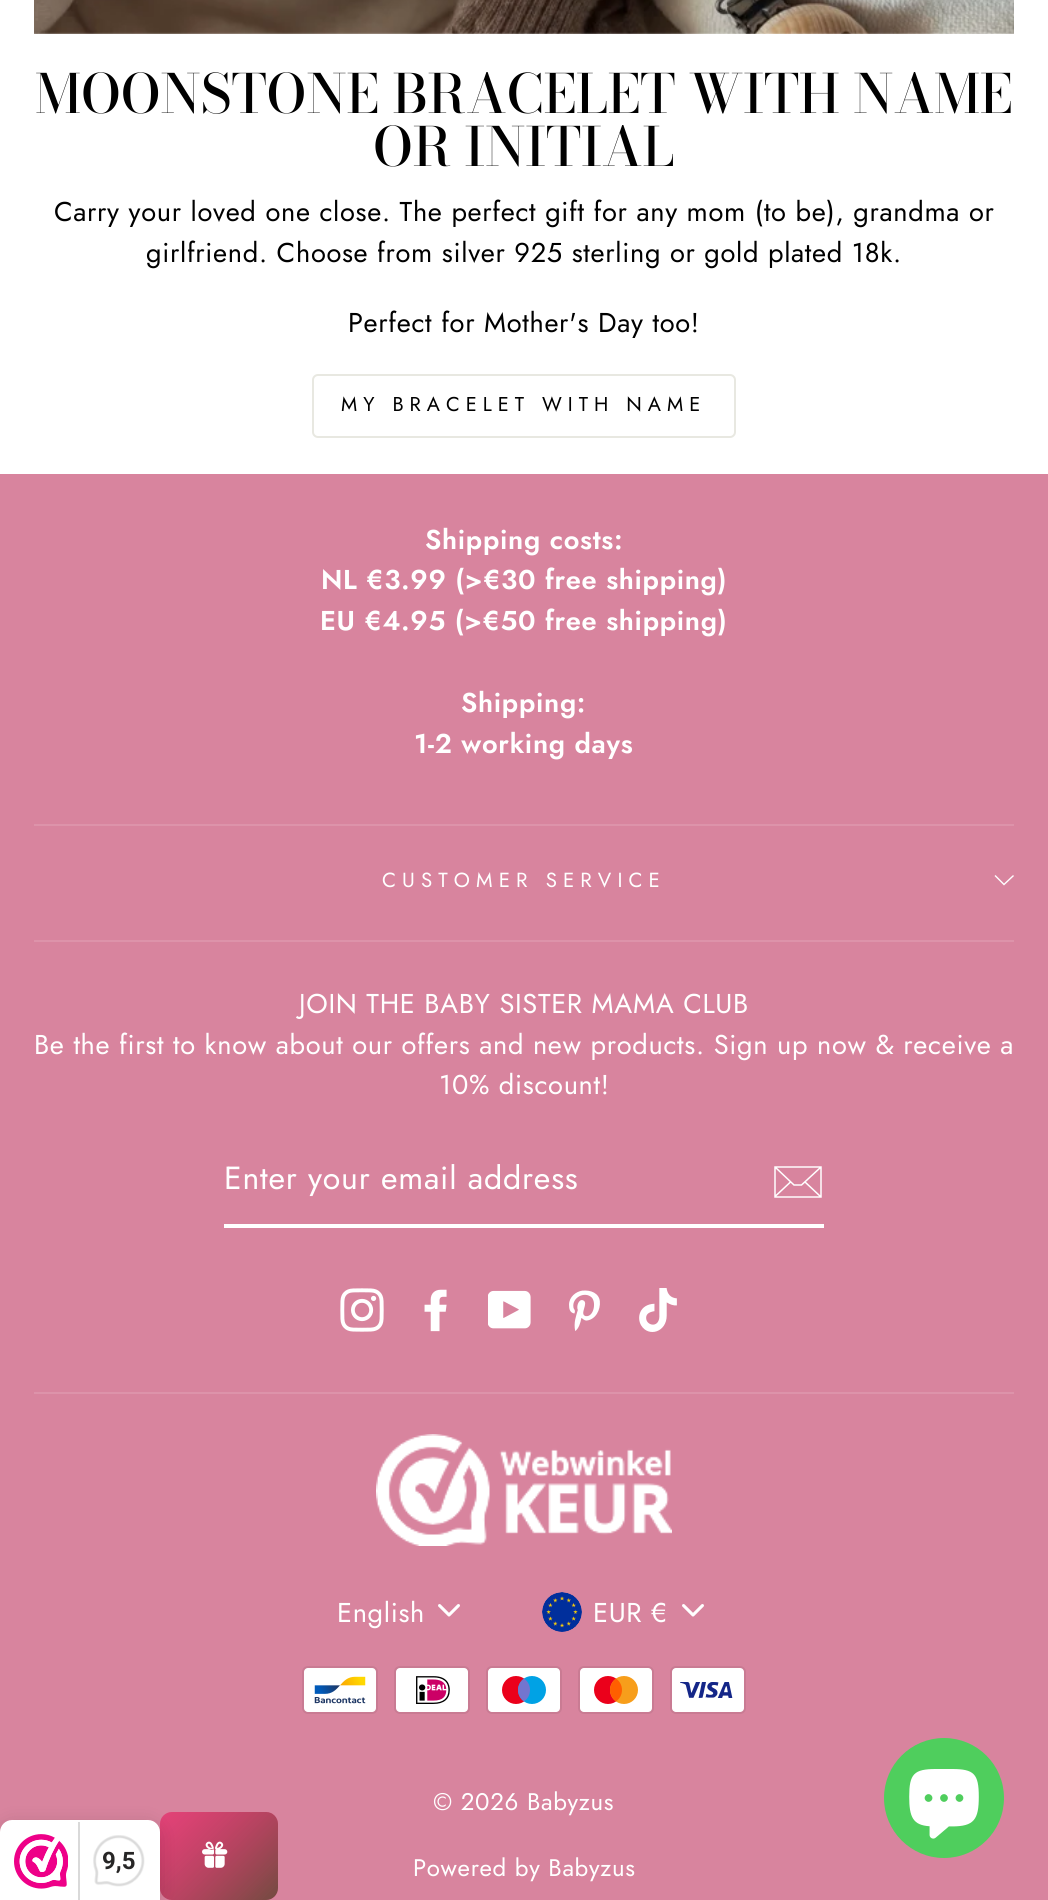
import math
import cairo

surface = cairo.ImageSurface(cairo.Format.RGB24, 1048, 1900)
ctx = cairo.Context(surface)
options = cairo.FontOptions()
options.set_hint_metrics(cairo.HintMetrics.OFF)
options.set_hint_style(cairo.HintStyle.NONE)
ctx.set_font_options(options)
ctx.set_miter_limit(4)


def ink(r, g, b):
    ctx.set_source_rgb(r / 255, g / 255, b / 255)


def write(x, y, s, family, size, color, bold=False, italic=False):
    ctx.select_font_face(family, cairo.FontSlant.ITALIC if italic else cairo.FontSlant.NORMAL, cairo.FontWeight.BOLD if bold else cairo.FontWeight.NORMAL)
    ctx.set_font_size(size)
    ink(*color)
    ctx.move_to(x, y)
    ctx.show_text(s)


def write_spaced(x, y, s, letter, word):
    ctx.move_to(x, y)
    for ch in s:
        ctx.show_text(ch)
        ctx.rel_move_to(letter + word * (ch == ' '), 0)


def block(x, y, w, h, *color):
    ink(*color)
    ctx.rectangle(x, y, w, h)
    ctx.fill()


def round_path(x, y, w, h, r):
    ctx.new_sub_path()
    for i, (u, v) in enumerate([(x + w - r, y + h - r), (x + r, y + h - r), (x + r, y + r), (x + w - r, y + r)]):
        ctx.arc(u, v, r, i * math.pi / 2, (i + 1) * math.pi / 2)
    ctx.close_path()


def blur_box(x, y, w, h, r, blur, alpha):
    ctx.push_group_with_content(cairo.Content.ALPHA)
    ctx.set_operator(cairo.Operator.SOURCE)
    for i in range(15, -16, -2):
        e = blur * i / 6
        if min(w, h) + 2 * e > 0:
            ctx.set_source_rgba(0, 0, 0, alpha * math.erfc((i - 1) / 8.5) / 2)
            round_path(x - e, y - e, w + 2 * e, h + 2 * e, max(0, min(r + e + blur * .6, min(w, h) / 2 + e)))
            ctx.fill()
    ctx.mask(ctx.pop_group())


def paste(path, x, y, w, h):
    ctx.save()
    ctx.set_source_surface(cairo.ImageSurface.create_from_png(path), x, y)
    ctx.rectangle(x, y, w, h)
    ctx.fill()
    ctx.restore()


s1 = dict(family="Bodoni Moda Medium", size=53.6, color=(0, 0, 0))
s2 = dict(family="Roboto", size=24, color=(39, 38, 38), bold=True)

ink(255, 255, 255)
ctx.paint()
paste("pic1.png", 34, 0, 980, 34)
write(35, 113, "MOONSTONE BRACELET WITH NAME", **s1)
write(373, 166, "OR INITIAL", **s1)
ctx.select_font_face("Jost")
ctx.set_font_size(27.2)
write_spaced(54, 221, "Carry your loved one close. The perfect gift for any mom (to be), grandma or", 0.68, 0)
write_spaced(146, 262, "girlfriend. Choose from silver 925 sterling or gold plated 18k.", 0.68, 0)
write_spaced(348, 332, "Perfect for Mother's Day too!", 0.68, 0)
round_path(313, 375, 422, 62, 5)
ink(232, 232, 225)
ctx.stroke()
ctx.set_font_size(20)
ink(0, 0, 0)
write_spaced(341, 411, "MY BRACELET WITH NAME", 6, 0)
block(0, 474, 1048, 1426, 216, 132, 158)
ctx.select_font_face("Jost SemiBold")
ctx.set_font_size(27.2)
ink(255, 255, 255)
write_spaced(425, 549, "Shipping costs:", 0.68, 0)
write_spaced(321, 589, "NL €3.99 (>€30 free shipping)", 0.68, 0)
write_spaced(320, 630, "EU €4.95 (>€50 free shipping)", 0.68, 0)
write_spaced(461, 712, "Shipping:", 0.68, 0)
write_spaced(414, 753, "1-2 working days", 0.68, 0)
block(34, 824, 980, 2, 221, 147, 170)
ctx.select_font_face("Jost")
ctx.set_font_size(20.4)
ink(255, 255, 255)
write_spaced(382, 887, "CUSTOMER SERVICE", 6.1, 0)
ctx.new_path()
ctx.move_to(995, 875.5)
ctx.line_to(1004, 884.5)
ctx.line_to(1013.5, 875.5)
ctx.set_line_width(1.4)
ctx.stroke()
block(34, 940, 980, 2, 221, 147, 170)
ctx.set_font_size(27.2)
ink(255, 255, 255)
write_spaced(299, 1013, "JOIN THE BABY SISTER MAMA CLUB", 0.68, 0)
write_spaced(34, 1054, "Be the first to know about our offers and new products. Sign up now & receive a", 0.68, 0)
write_spaced(439, 1094, "10% discount!", 0.68, 0)
block(224, 1224, 600, 4, 255, 255, 255)
ctx.set_font_size(32)
write_spaced(224, 1189, "Enter your email address", 0.8, 0)
ctx.new_path()
ctx.move_to(821, 1197)
ctx.line_to(775, 1197)
ctx.line_to(775, 1167)
ctx.line_to(821, 1167)
ctx.close_path()
ctx.move_to(775, 1167)
ctx.line_to(794, 1185)
ctx.line_to(801.5, 1185)
ctx.line_to(821, 1167)
ctx.move_to(790.5, 1182)
ctx.line_to(775, 1196.5)
ctx.move_to(821, 1197)
ctx.line_to(805, 1182)
ctx.set_line_width(1.5)
ctx.stroke()
paste("pic2.png", 340, 1288, 44, 44)
paste("pic3.png", 424, 1289, 23, 43)
paste("pic4.png", 488, 1290, 43, 39)
paste("pic5.png", 569, 1290, 31, 41)
paste("pic6.png", 639, 1288, 38, 44)
block(34, 1392, 980, 2, 221, 147, 170)
paste("pic7.png", 376, 1434, 296, 112)
paste("pic8.png", 438, 1604, 22, 13)
ctx.set_font_size(27.2)
ink(255, 255, 255)
write_spaced(337, 1622, "English", 0.68, 0)
paste("pic8.png", 682, 1604, 22, 13)
paste("pic9.png", 542, 1592, 40, 40)
write_spaced(593, 1622, "EUR €", 0.68, 0)
paste("pic10.png", 302, 1666, 76, 48)
paste("pic11.png", 394, 1666, 76, 48)
paste("pic12.png", 486, 1666, 76, 48)
paste("pic13.png", 578, 1666, 76, 48)
paste("pic14.png", 670, 1666, 76, 48)
ctx.set_font_size(24)
write_spaced(433, 1810, "© 2026 Babyzus", 0.68, 0)
write_spaced(413, 1876, "Powered by Babyzus", 0.68, 0)
ink(223, 91, 134)
round_path(160, 1812, 118, 88, 12)
ctx.fill()
gradient = cairo.LinearGradient(168, 1805, 271, 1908)
gradient.add_color_stop_rgba(0, 0.914, 0.118, 0.388, 0.4)
gradient.add_color_stop_rgba(1, 0.298, 0.275, 0.157, 0.75)
ctx.set_source(gradient)
round_path(160, 1812, 118, 88, 12)
ctx.fill()
ink(0, 0, 0)
blur_box(0, 1824, 160, 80, 12, 10, 0.15)
ink(255, 255, 255)
ctx.new_path()
ctx.move_to(12, 1820)
ctx.line_to(148, 1820)
ctx.curve_to(154.5, 1820, 160, 1825.5, 160, 1832)
ctx.line_to(160, 1900)
ctx.line_to(0, 1900)
ctx.line_to(0, 1832)
ctx.curve_to(0, 1825.5, 5.5, 1820, 12, 1820)
ctx.close_path()
ctx.fill()
paste("pic15.png", 14, 1834, 54, 55)
block(78, 1822, 2, 78, 217, 217, 217)
paste("pic16.png", 93, 1835, 52, 52)
write(102, 1869, "9,5", **s2)
paste("pic17.png", 202, 1841, 26, 27)
ink(79, 206, 93)
ctx.arc(944, 1798, 60, 0, 2 * math.pi)
ctx.fill()
paste("pic18.png", 909, 1769, 70, 70)
surface.write_to_png("screenshot.png")
